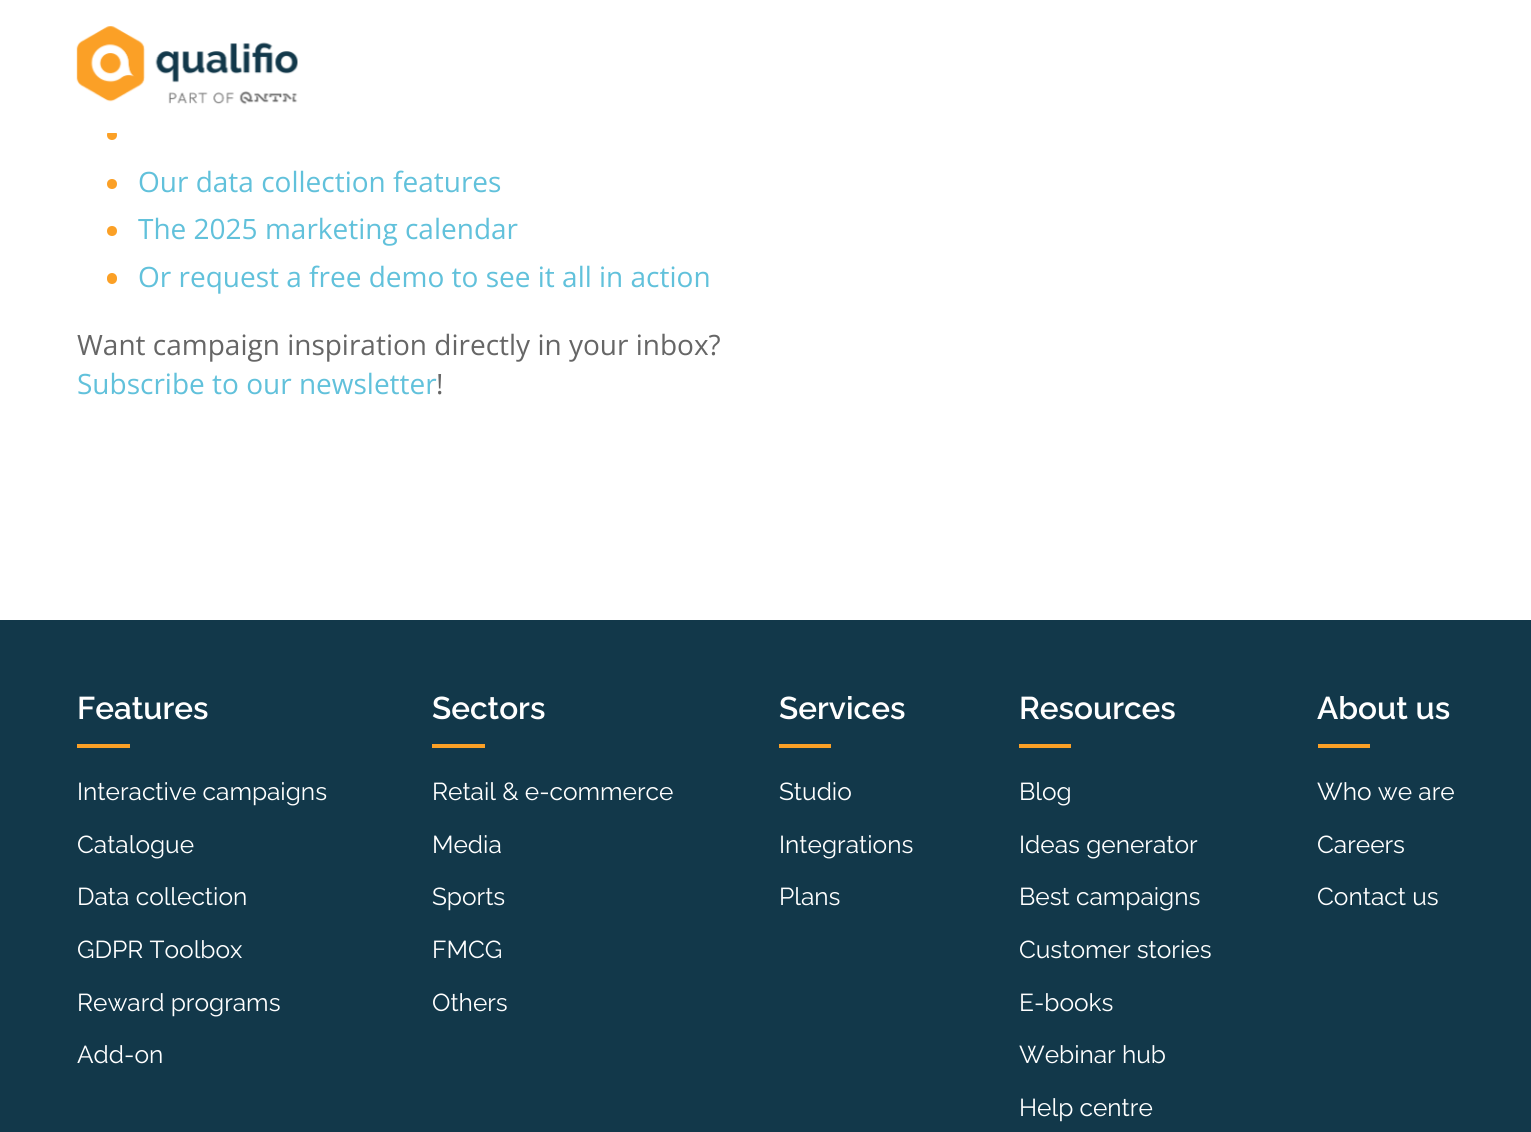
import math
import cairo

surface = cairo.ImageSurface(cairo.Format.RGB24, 1531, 1132)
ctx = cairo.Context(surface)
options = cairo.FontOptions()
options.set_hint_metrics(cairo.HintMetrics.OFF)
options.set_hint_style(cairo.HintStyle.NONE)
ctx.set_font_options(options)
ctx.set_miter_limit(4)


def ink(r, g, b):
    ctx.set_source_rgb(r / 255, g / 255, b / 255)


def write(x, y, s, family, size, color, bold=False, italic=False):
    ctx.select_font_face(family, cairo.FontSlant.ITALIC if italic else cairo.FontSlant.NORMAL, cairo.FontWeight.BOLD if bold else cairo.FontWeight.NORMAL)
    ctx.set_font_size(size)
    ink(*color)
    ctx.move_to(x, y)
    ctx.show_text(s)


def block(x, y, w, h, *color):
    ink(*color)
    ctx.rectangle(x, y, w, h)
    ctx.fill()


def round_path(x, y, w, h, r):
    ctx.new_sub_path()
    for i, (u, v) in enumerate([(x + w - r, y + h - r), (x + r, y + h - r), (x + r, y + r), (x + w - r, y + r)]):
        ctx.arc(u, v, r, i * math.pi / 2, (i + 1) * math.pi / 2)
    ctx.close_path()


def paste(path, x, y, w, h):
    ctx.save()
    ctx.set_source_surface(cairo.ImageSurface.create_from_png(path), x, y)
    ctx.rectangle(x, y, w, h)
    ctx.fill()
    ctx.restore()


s1 = dict(family="Open Sans", size=28, color=(97, 193, 219))
s2 = dict(family="Open Sans", size=28, color=(102, 102, 102))
s3 = dict(family="Raleway SemiBold", size=31.5, color=(255, 255, 255))
s4 = dict(family="Raleway", size=24.5, color=(255, 255, 255))

ink(255, 255, 255)
ctx.paint()
ink(251, 160, 38)
ctx.arc(112, 135, 5, 0, 2 * math.pi)
ctx.fill()
block(107, 130, 10, 3, 255, 255, 255)
paste("pic1.png", 76, 26, 222, 79)
ink(251, 160, 38)
ctx.arc(112, 184, 5, 0, 2 * math.pi)
ctx.fill()
write(138, 192, "Our data collection features", **s1)
ink(251, 160, 38)
ctx.new_path()
ctx.arc(112, 231, 5, 0, 2 * math.pi)
ctx.fill()
write(138, 239, "The 2025 marketing calendar", **s1)
ink(251, 160, 38)
round_path(107, 273, 10, 11, 5)
ctx.fill()
write(138, 287, "Or request a free demo to see it all in action", **s1)
write(77, 355, "Want campaign inspiration directly in your inbox?", **s2)
write(77, 394, "Subscribe to our newsletter", **s1)
write(436, 394, "!", **s2)
block(0, 620, 1531, 512, 18, 56, 74)
write(77, 719, "Features", **s3)
block(77, 744, 53, 4, 251, 160, 38)
write(77, 800, "Interactive campaigns", **s4)
write(77, 853, "Catalogue", **s4)
write(77, 905, "Data collection", **s4)
write(77, 958, "GDPR Toolbox", **s4)
write(77, 1011, "Reward programs", **s4)
write(77, 1063, "Add-on", **s4)
write(432, 719, "Sectors", **s3)
block(432, 744, 53, 4, 251, 160, 38)
write(432, 800, "Retail & e-commerce", **s4)
write(432, 853, "Media", **s4)
write(432, 905, "Sports", **s4)
write(432, 958, "FMCG", **s4)
write(432, 1011, "Others", **s4)
write(779, 719, "Services", **s3)
block(779, 744, 52, 4, 251, 160, 38)
write(779, 800, "Studio", **s4)
write(779, 853, "Integrations", **s4)
write(779, 905, "Plans", **s4)
write(1019, 719, "Resources", **s3)
block(1019, 744, 52, 4, 251, 160, 38)
write(1019, 800, "Blog", **s4)
write(1019, 853, "Ideas generator", **s4)
write(1019, 905, "Best campaigns", **s4)
write(1019, 958, "Customer stories", **s4)
write(1019, 1011, "E-books", **s4)
write(1019, 1063, "Webinar hub", **s4)
write(1019, 1116, "Help centre", **s4)
write(1317, 719, "About us", **s3)
block(1318, 744, 52, 4, 251, 160, 38)
write(1317, 800, "Who we are", **s4)
write(1317, 853, "Careers", **s4)
write(1317, 905, "Contact us", **s4)
surface.write_to_png("screenshot.png")
